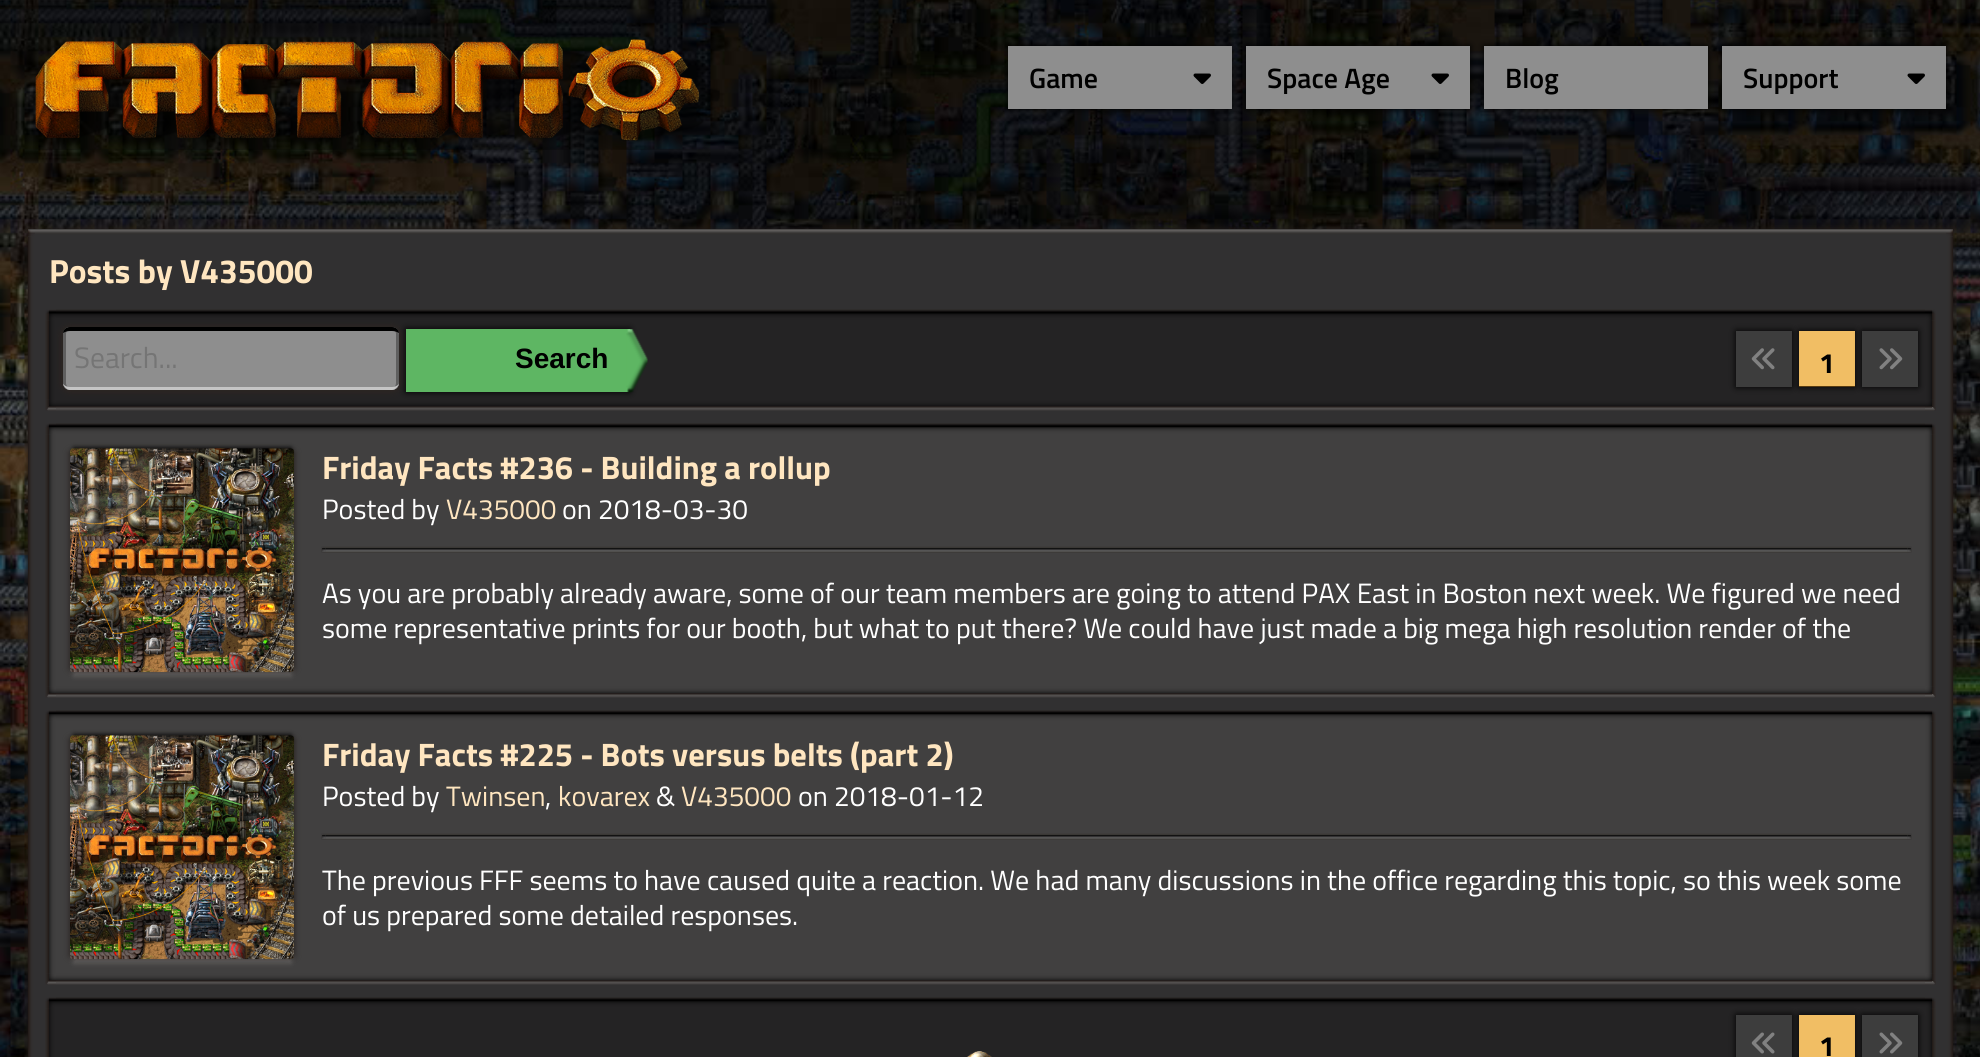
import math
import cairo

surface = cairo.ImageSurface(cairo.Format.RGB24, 1980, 1057)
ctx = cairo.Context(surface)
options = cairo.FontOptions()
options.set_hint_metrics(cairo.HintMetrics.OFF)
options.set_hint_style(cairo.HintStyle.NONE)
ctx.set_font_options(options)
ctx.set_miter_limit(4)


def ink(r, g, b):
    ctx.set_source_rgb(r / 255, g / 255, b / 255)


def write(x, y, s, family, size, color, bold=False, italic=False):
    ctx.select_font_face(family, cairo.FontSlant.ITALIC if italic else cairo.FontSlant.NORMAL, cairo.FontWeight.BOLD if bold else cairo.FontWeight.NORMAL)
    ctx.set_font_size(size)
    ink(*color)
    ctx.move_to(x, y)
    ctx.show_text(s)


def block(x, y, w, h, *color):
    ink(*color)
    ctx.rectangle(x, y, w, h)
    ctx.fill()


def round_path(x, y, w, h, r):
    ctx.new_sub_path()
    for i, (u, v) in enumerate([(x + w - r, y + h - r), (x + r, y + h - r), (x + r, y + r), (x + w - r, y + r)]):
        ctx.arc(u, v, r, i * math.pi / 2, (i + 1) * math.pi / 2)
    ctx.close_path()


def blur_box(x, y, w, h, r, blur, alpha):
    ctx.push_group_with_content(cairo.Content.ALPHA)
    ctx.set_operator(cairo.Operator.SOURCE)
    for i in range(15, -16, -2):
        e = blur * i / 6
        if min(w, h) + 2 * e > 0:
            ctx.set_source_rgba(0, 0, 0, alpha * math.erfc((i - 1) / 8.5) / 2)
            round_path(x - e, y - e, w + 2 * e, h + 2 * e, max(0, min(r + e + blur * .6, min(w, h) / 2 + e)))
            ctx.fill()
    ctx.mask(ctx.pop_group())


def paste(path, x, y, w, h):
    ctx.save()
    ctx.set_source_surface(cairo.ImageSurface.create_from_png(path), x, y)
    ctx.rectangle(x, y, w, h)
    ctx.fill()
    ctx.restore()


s1 = dict(family="Titillium Web SemiBold", size=28, color=(0, 0, 0))
s2 = dict(family="Titillium Web", size=33.5, color=(255, 230, 192), bold=True)
s3 = dict(family="Titillium Web", size=29.5, color=(117, 117, 117))
s4 = dict(family="Liberation Sans", size=28, color=(0, 0, 0), bold=True)
s5 = dict(family="Titillium Web", size=28, color=(0, 0, 0), bold=True)
s6 = dict(family="Titillium Web", size=32.5, color=(255, 230, 192), bold=True)
s7 = dict(family="Titillium Web", size=28, color=(255, 255, 255))
s8 = dict(family="Titillium Web", size=28, color=(255, 230, 192))

ink(255, 255, 255)
ctx.paint()
paste("pic1.png", 0, 0, 1980, 1057)
paste("pic2.png", 33, 39, 687, 111)
ink(0, 0, 0)
blur_box(1008, 46, 224, 63, 0, 3.5, 1)
block(1008, 46, 224, 63, 142, 142, 142)
write(1029, 88, "Game", **s1)
paste("pic3.png", 1193, 73, 18, 11)
ink(0, 0, 0)
blur_box(1246, 46, 224, 63, 0, 3.5, 1)
block(1246, 46, 224, 63, 142, 142, 142)
write(1267, 88, "Space Age", **s1)
paste("pic3.png", 1431, 73, 18, 11)
ink(0, 0, 0)
blur_box(1484, 46, 224, 63, 0, 3.5, 1)
block(1484, 46, 224, 63, 142, 142, 142)
write(1505, 88, "Blog", **s1)
ink(0, 0, 0)
blur_box(1722, 46, 224, 63, 0, 3.5, 1)
block(1722, 46, 224, 63, 142, 142, 142)
write(1743, 88, "Support", **s1)
paste("pic3.png", 1907, 73, 18, 11)
ink(32, 24, 21)
blur_box(28, 229, 1925, 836, 0, 2.5, 1)
block(28, 229, 1925, 828, 49, 48, 49)
paste("pic4.png", 28, 229, 1925, 828)
write(49, 283, "Posts by V435000", **s2)
block(49, 313, 1883, 93, 36, 35, 36)
paste("pic5.png", 45, 309, 1891, 102)
ctx.save()
ctx.rectangle(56, 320, 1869, 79)
ctx.clip()
ink(46, 37, 33)
blur_box(61, 326, 340, 66, 9, 3.5, 1)
ctx.restore()
ink(142, 142, 142)
round_path(63, 327, 336, 63, 7)
ctx.fill()
ink(95, 95, 95)
ctx.new_path()
ctx.move_to(388, 390)
ctx.curve_to(400, 390, 399, 386, 399, 375)
ctx.line_to(399, 342)
ctx.curve_to(399, 331, 400, 327, 388, 327)
ctx.curve_to(392, 327, 396, 330, 396, 334)
ctx.line_to(396, 383)
ctx.curve_to(396, 387, 392, 390, 388, 390)
ctx.close_path()
ctx.fill()
ctx.new_path()
ctx.move_to(70, 327)
ctx.curve_to(66, 327, 63, 330, 63, 334)
ctx.line_to(63, 383)
ctx.curve_to(63, 387, 66, 390, 70, 390)
ctx.line_to(74, 390)
ctx.curve_to(70, 390, 66, 387, 66, 383)
ctx.line_to(66, 334)
ctx.curve_to(66, 330, 70, 327, 74, 327)
ctx.close_path()
ctx.fill()
ink(197, 197, 197)
ctx.new_path()
ctx.move_to(63, 384)
ctx.curve_to(64, 387, 67, 390, 70, 390)
ctx.line_to(392, 390)
ctx.curve_to(395, 390, 398, 387, 399, 384)
ctx.curve_to(397, 386, 395, 387, 392, 387)
ctx.line_to(70, 387)
ctx.curve_to(67, 387, 65, 386, 63, 384)
ctx.close_path()
ctx.fill()
ink(0, 0, 0)
ctx.new_path()
ctx.move_to(70, 331)
ctx.line_to(392, 331)
ctx.curve_to(395, 331, 397, 332, 399, 333)
ctx.curve_to(399, 330, 396, 327, 392, 327)
ctx.line_to(70, 327)
ctx.curve_to(66, 327, 63, 330, 63, 333)
ctx.curve_to(65, 332, 67, 331, 70, 331)
ctx.close_path()
ctx.fill()
write(74, 368, "Search...", **s3)
ink(0, 0, 0)
blur_box(406, 329, 224, 63, 0, 3.5, 1)
block(406, 329, 224, 63, 94, 182, 99)
write(515, 368, "Search", **s4)
paste("pic6.png", 626, 329, 22, 64)
ink(0, 0, 0)
blur_box(1736, 331, 56, 56, 0, 3.5, 1)
block(1736, 331, 56, 56, 61, 61, 61)
paste("pic7.png", 1751, 348, 24, 22)
ink(0, 0, 0)
blur_box(1799, 331, 56, 56, 0, 3.5, 1)
block(1799, 331, 56, 55, 241, 190, 100)
ctx.save()
ctx.rectangle(1799, 331, 56, 56)
ctx.clip()
ink(86, 58, 16)
ctx.set_fill_rule(cairo.FillRule.EVEN_ODD)
ctx.new_path()
ctx.move_to(1626, 158)
ctx.line_to(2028, 158)
ctx.line_to(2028, 560)
ctx.line_to(1626, 560)
ctx.close_path()
ctx.move_to(1799, 302)
ctx.line_to(1855, 302)
ctx.curve_to(1863, 302, 1869, 308, 1869, 316)
ctx.line_to(1869, 372)
ctx.curve_to(1869, 380, 1863, 386, 1855, 386)
ctx.line_to(1799, 386)
ctx.curve_to(1791, 386, 1785, 380, 1785, 372)
ctx.line_to(1785, 316)
ctx.curve_to(1785, 308, 1791, 302, 1799, 302)
ctx.close_path()
ctx.fill()
ctx.restore()
write(1819, 373, "1", **s5)
ink(0, 0, 0)
blur_box(1862, 331, 56, 56, 0, 3.5, 1)
block(1862, 331, 56, 56, 61, 61, 61)
paste("pic8.png", 1879, 348, 24, 22)
block(49, 427, 1883, 266, 65, 64, 64)
paste("pic9.png", 45, 423, 1891, 275)
ink(100, 98, 97)
blur_box(74, 459, 217, 217, 0, 2.5, 1)
ink(40, 34, 31)
blur_box(77, 452, 217, 217, 0, 3.5, 1)
blur_box(70, 452, 217, 217, 0, 3.5, 1)
ink(0, 0, 0)
blur_box(74, 448, 217, 217, 0, 2.5, 1)
paste("pic10.png", 70, 448, 224, 225)
write(322, 479, "Friday Facts #236 - Building a rollup", **s6)
write(322, 519, "Posted by", **s7)
write(446, 519, "V435000", **s8)
write(562, 519, "on 2018-03-30", **s7)
paste("pic11.png", 321, 546, 1591, 7)
write(322, 603, "As you are probably already aware, some of our team members are going to attend PAX East in Boston next week. We figured we need", **s7)
write(322, 638, "some representative prints for our booth, but what to put there? We could have just made a big mega high resolution render of the", **s7)
block(49, 714, 1883, 266, 65, 64, 64)
paste("pic9.png", 45, 710, 1891, 275)
ink(100, 98, 97)
blur_box(74, 746, 217, 217, 0, 2.5, 1)
ink(40, 34, 31)
blur_box(77, 739, 217, 217, 0, 3.5, 1)
blur_box(70, 739, 217, 217, 0, 3.5, 1)
ink(0, 0, 0)
blur_box(74, 735, 217, 217, 0, 2.5, 1)
paste("pic10.png", 70, 735, 224, 225)
write(322, 766, "Friday Facts #225 - Bots versus belts (part 2)", **s6)
write(322, 806, "Posted by", **s7)
write(446, 806, "Twinsen", **s8)
write(545, 806, ",", **s7)
write(558, 806, "kovarex", **s8)
write(656, 806, "&", **s7)
write(681, 806, "V435000", **s8)
write(798, 806, "on 2018-01-12", **s7)
paste("pic11.png", 321, 833, 1591, 7)
write(322, 890, "The previous FFF seems to have caused quite a reaction. We had many discussions in the office regarding this topic, so this week some", **s7)
write(322, 925, "of us prepared some detailed responses.", **s7)
block(49, 1001, 1883, 56, 36, 35, 36)
paste("pic12.png", 45, 997, 1891, 60)
ink(0, 0, 0)
blur_box(1736, 1015, 56, 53, 0, 3.5, 1)
block(1736, 1015, 56, 42, 61, 61, 61)
paste("pic13.png", 1751, 1032, 24, 22)
ink(0, 0, 0)
blur_box(1799, 1015, 56, 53, 0, 3.5, 1)
block(1799, 1015, 56, 42, 241, 190, 100)
write(1819, 1056, "1", **s5)
ink(0, 0, 0)
blur_box(1862, 1015, 56, 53, 0, 3.5, 1)
block(1862, 1015, 56, 42, 61, 61, 61)
paste("pic14.png", 1879, 1032, 24, 22)
paste("pic15.png", 967, 1051, 25, 6)
surface.write_to_png("screenshot.png")
